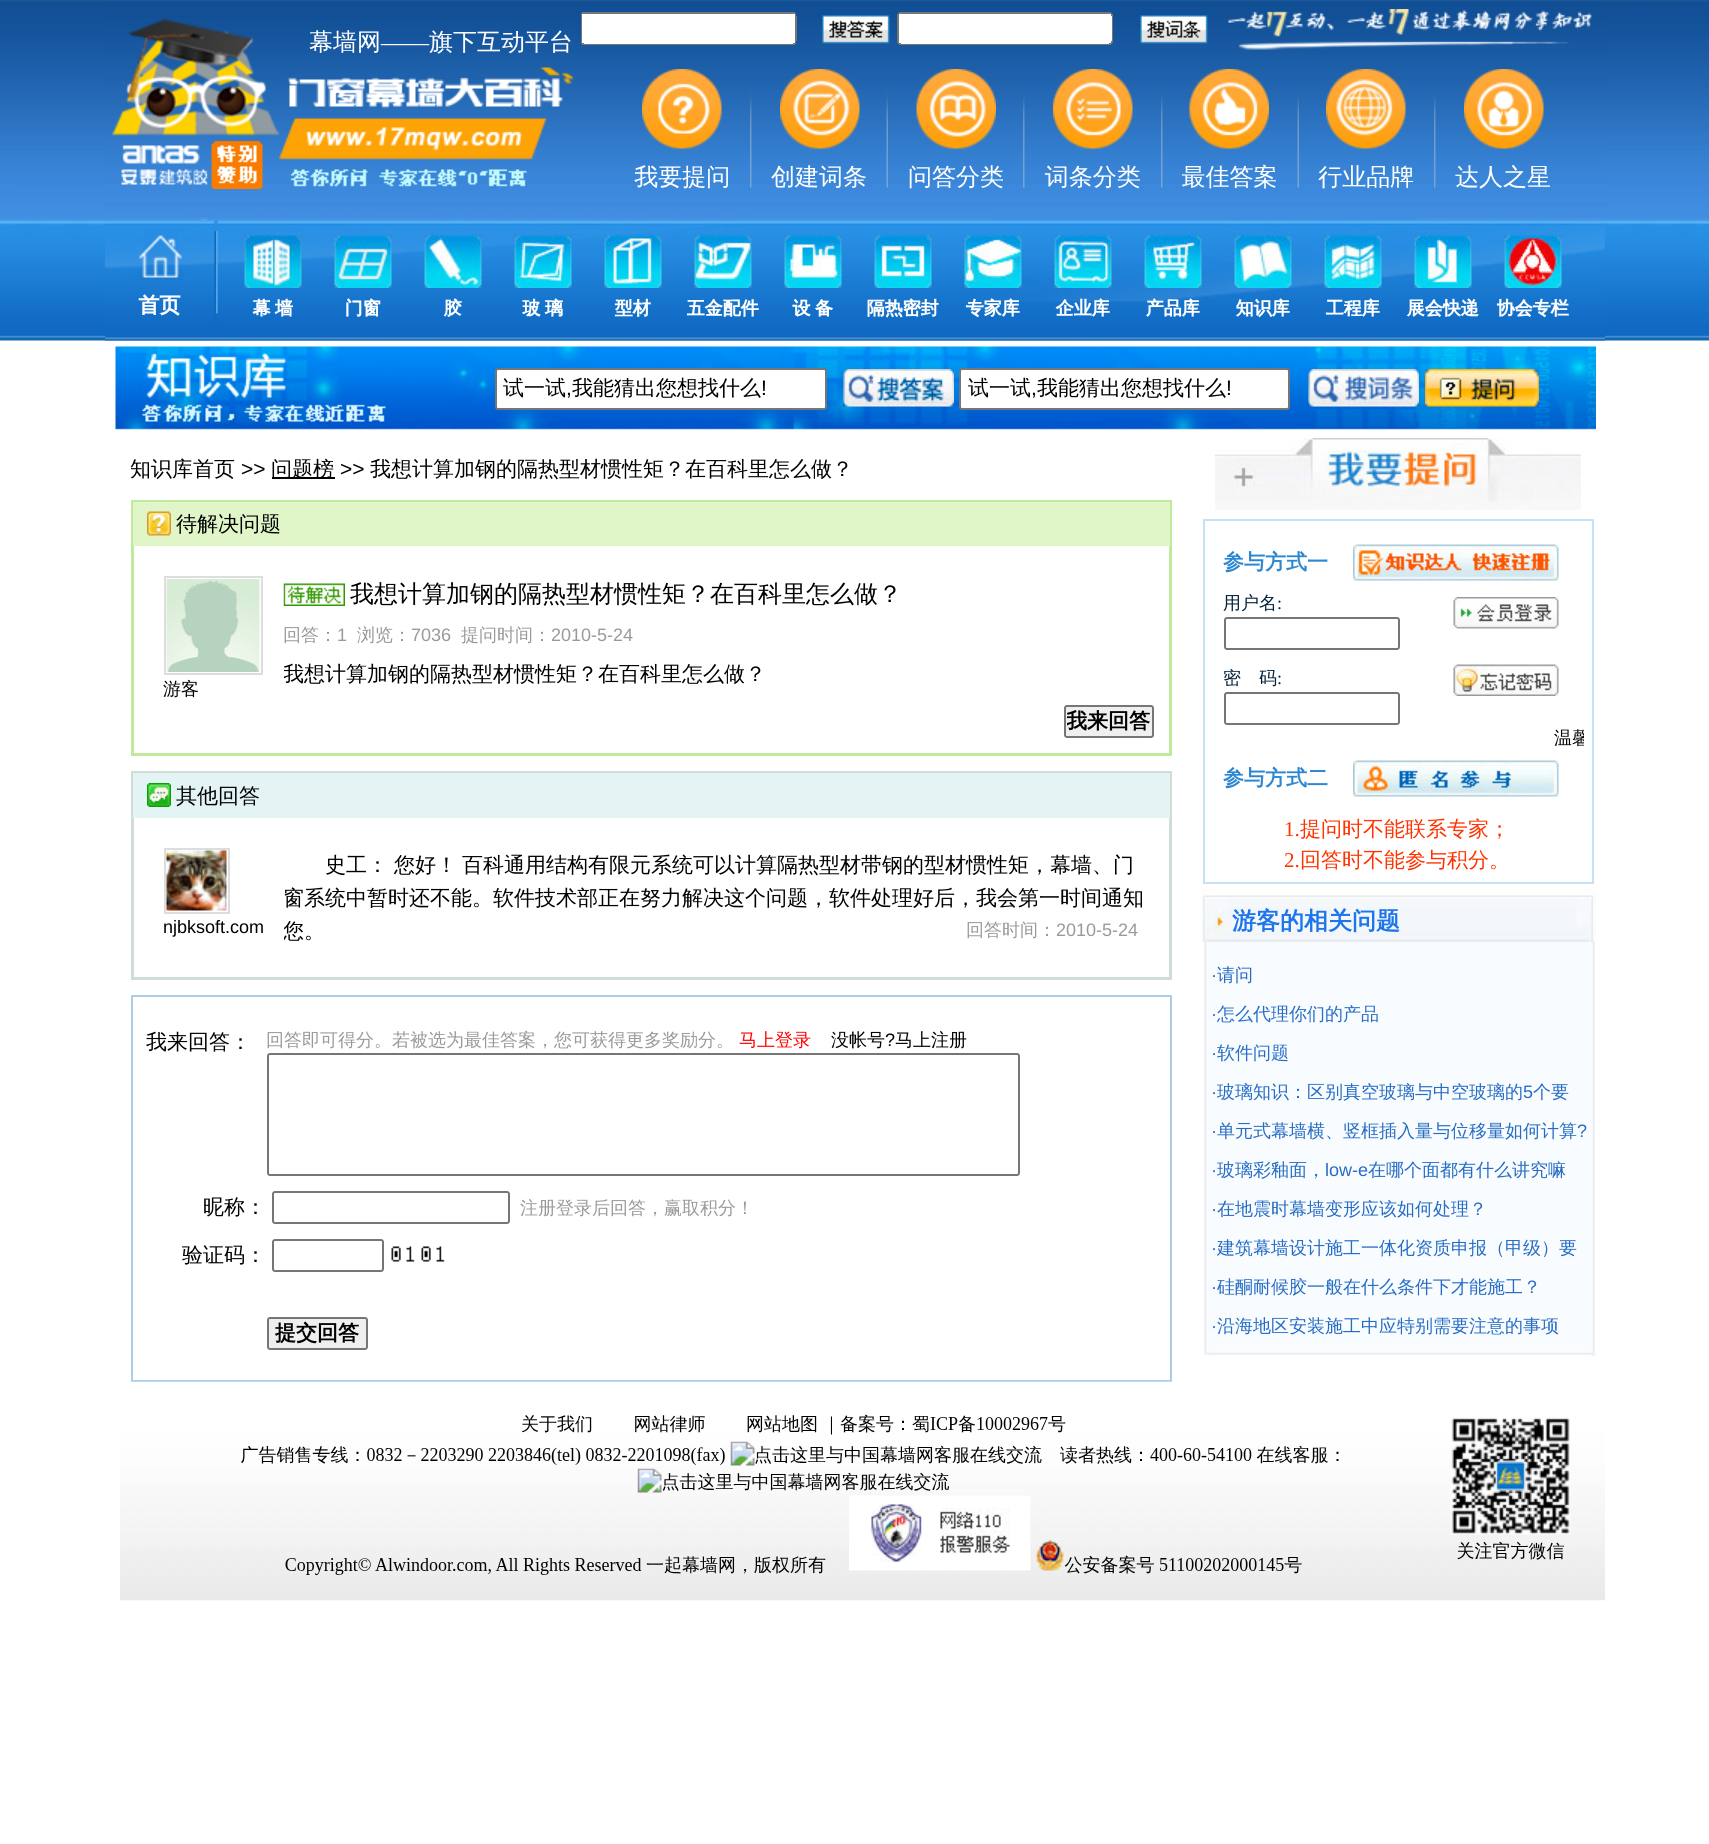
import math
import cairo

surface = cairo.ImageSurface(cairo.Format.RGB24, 1709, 1844)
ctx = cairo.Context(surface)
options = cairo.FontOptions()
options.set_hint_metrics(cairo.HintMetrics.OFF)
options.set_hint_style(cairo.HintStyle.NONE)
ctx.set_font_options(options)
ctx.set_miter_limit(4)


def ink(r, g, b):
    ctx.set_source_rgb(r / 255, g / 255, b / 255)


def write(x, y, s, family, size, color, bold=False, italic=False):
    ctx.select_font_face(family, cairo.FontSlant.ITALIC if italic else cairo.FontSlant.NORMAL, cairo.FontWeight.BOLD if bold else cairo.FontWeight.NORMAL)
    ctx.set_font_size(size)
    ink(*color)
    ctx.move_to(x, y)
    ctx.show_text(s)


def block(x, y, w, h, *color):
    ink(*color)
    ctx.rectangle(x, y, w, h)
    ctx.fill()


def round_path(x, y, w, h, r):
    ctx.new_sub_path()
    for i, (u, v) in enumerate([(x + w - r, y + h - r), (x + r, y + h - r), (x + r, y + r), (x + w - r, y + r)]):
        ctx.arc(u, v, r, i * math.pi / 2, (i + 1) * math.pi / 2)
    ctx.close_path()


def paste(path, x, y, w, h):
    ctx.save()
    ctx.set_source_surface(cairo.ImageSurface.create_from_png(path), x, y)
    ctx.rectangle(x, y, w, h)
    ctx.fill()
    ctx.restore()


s1 = dict(family="WenQuanYi Zen Hei Medium", size=21, color=(0, 0, 0))
s2 = dict(family="Liberation Sans", size=21, color=(0, 0, 0))
s3 = dict(family="WenQuanYi Zen Hei Medium", size=18, color=(0, 0, 0))
s4 = dict(family="WenQuanYi Zen Hei Medium", size=24, color=(0, 0, 0))
s5 = dict(family="WenQuanYi Zen Hei Medium", size=18, color=(153, 153, 153))
s6 = dict(family="Liberation Sans", size=18, color=(153, 153, 153))
s7 = dict(family="WenQuanYi Zen Hei", size=21, color=(0, 0, 0), bold=True)
s8 = dict(family="Liberation Sans", size=18, color=(0, 0, 0))
s9 = dict(family="WenQuanYi Zen Hei Medium", size=18, color=(255, 0, 0))
s10 = dict(family="WenQuanYi Zen Hei", size=21, color=(43, 135, 210), bold=True)
s11 = dict(family="WenQuanYi Zen Hei Medium", size=18, color=(2, 34, 59))
s12 = dict(family="Liberation Serif", size=18, color=(2, 34, 59))
s13 = dict(family="Liberation Serif", size=21, color=(255, 51, 0))
s14 = dict(family="WenQuanYi Zen Hei Medium", size=21, color=(255, 51, 0))
s15 = dict(family="WenQuanYi Zen Hei", size=24, color=(28, 117, 236), bold=True)
s16 = dict(family="Liberation Sans", size=18, color=(38, 108, 196))
s17 = dict(family="WenQuanYi Zen Hei Medium", size=18, color=(38, 108, 196))

ink(255, 255, 255)
ctx.paint()
paste("pic1.png", 0, 0, 1709, 341)
paste("pic2.png", 115, 345, 380, 85)
paste("pic3.png", 495, 345, 1101, 85)
ink(255, 255, 255)
round_path(496, 369, 330, 40, 2)
ctx.fill_preserve()
ink(118, 118, 118)
ctx.stroke()
write(503, 395, "试一试", **s1)
write(566, 395, ",", **s2)
write(572, 395, "我能猜出您想找什么", **s1)
write(761, 395, "!", **s2)
paste("pic4.png", 843, 369, 111, 38)
ink(255, 255, 255)
round_path(960, 369, 329, 40, 2)
ctx.fill_preserve()
ink(118, 118, 118)
ctx.stroke()
write(968, 395, "试一试", **s1)
write(1031, 395, ",", **s2)
write(1037, 395, "我能猜出您想找什么", **s1)
write(1226, 395, "!", **s2)
paste("pic5.png", 1308, 369, 111, 38)
paste("pic6.png", 1425, 369, 114, 38)
write(130, 476, "知识库首页", **s1)
write(241, 476, ">>", **s2)
block(272, 477, 63, 2, 0, 0, 0)
write(271, 476, "问题榜", **s1)
write(340, 476, ">>", **s2)
write(370, 476, "我想计算加钢的隔热型材惯性矩？在百科里怎么做？", **s1)
block(133, 502, 1037, 44, 224, 246, 201)
paste("pic7.png", 147, 511, 24, 25)
block(131, 500, 1041, 2, 191, 233, 157)
block(1170, 500, 2, 46, 191, 233, 157)
block(131, 500, 2, 46, 191, 233, 157)
write(176, 531, "待解决问题", **s1)
block(1169, 546, 3, 210, 191, 233, 157)
block(131, 753, 1041, 3, 191, 233, 157)
block(131, 546, 3, 210, 191, 233, 157)
ctx.rectangle(165, 577, 97, 97)
ink(221, 221, 221)
ctx.stroke()
paste("pic8.png", 166, 579, 94, 93)
write(163, 695, "游客", **s3)
paste("pic9.png", 283, 583, 62, 23)
write(350, 602, "我想计算加钢的隔热型材惯性矩？在百科里怎么做？", **s4)
write(283, 641, "回答：", **s5)
write(337, 641, "1", **s6)
write(357, 641, "浏览：", **s5)
write(411, 641, "7036", **s6)
write(461, 641, "提问时间：", **s5)
write(551, 641, "2010-5-24", **s6)
ctx.save()
ctx.rectangle(284, 576, 885, 162)
ctx.clip()
write(283, 681, "我想计算加钢的隔热型材惯性矩？在百科里怎么做？", **s1)
ctx.restore()
ink(239, 239, 239)
round_path(1065, 706, 88, 31, 2)
ctx.fill_preserve()
ink(118, 118, 118)
ctx.stroke()
ctx.save()
ctx.rectangle(1067, 708, 84, 27)
ctx.clip()
write(1066, 728, "我来回答", **s7)
ctx.restore()
block(133, 773, 1037, 45, 228, 244, 244)
paste("pic10.png", 147, 783, 24, 24)
block(131, 771, 1041, 2, 207, 221, 214)
block(1170, 771, 2, 47, 207, 221, 214)
block(131, 771, 2, 47, 207, 221, 214)
write(176, 803, "其他回答", **s1)
block(1169, 818, 3, 162, 207, 221, 214)
block(131, 977, 1041, 3, 207, 221, 214)
block(131, 818, 3, 162, 207, 221, 214)
ctx.rectangle(165, 849, 64, 64)
ink(221, 221, 221)
ctx.stroke()
paste("pic11.png", 166, 850, 61, 61)
write(163, 933, "njbksoft.com", **s8)
write(325, 872, "史工：", **s1)
write(394, 872, "您好！", **s1)
write(462, 872, "百科通用结构有限元系统可以计算隔热型材带钢的型材惯性矩，幕墙、门", **s1)
write(283, 905, "窗系统中暂时还不能。软件技术部正在努力解决这个问题，软件处理好后，我会第一时间通知", **s1)
ctx.save()
ctx.rectangle(284, 848, 885, 114)
ctx.clip()
write(283, 938, "您。", **s1)
ctx.restore()
write(966, 936, "回答时间：", **s5)
write(1056, 936, "2010-5-24", **s6)
ctx.rectangle(132, 996, 1039, 385)
ink(174, 204, 228)
ctx.stroke()
write(146, 1049, "我来回答：", **s1)
write(266, 1046, "回答即可得分。若被选为最佳答案，您可获得更多奖励分。", **s5)
write(739, 1046, "马上登录", **s9)
write(831, 1046, "没帐号", **s3)
write(885, 1046, "?", **s8)
write(895, 1046, "马上注册", **s3)
round_path(268, 1054, 751, 121, 2)
ink(118, 118, 118)
ctx.stroke()
write(203, 1214, "昵称：", **s1)
round_path(273, 1192, 236, 31, 2)
ink(118, 118, 118)
ctx.stroke()
write(520, 1214, "注册登录后回答，赢取积分！", **s5)
write(182, 1262, "验证码：", **s1)
round_path(273, 1240, 110, 31, 2)
ink(118, 118, 118)
ctx.stroke()
paste("pic12.png", 391, 1246, 54, 16)
ink(239, 239, 239)
round_path(268, 1318, 99, 31, 2)
ctx.fill_preserve()
ink(118, 118, 118)
ctx.stroke()
write(275, 1340, "提交回答", **s7)
paste("pic13.png", 1215, 438, 366, 72)
block(1203, 519, 390, 2, 198, 225, 246)
block(1592, 519, 2, 365, 198, 225, 246)
block(1203, 882, 390, 2, 198, 225, 246)
block(1203, 519, 2, 365, 198, 225, 246)
write(1223, 569, "参与方式一", **s10)
paste("pic14.png", 1353, 544, 206, 37)
write(1223, 609, "用户名", **s11)
write(1277, 609, ":", **s12)
round_path(1225, 618, 174, 31, 2)
ink(118, 118, 118)
ctx.stroke()
write(1223, 684, "密", **s11)
write(1259, 684, "码", **s11)
write(1277, 684, ":", **s12)
round_path(1225, 693, 174, 31, 2)
ink(118, 118, 118)
ctx.stroke()
paste("pic15.png", 1453, 597, 106, 32)
paste("pic16.png", 1453, 664, 106, 32)
ctx.save()
ctx.rectangle(1212, 725, 372, 27)
ctx.clip()
write(1554, 744, "温馨", **s3)
ctx.restore()
write(1223, 785, "参与方式二", **s10)
paste("pic17.png", 1353, 760, 206, 37)
write(1284, 836, "1.", **s13)
write(1300, 836, "提问时不能联系专家；", **s14)
write(1284, 867, "2.", **s13)
write(1300, 867, "回答时不能参与积分。", **s14)
paste("pic18.png", 1201, 887, 395, 55)
write(1232, 929, "游客的相关问题", **s15)
paste("pic19.png", 1204, 942, 391, 404)
write(1211, 981, "·", **s16)
write(1217, 981, "请问", **s17)
write(1211, 1020, "·", **s16)
write(1217, 1020, "怎么代理你们的产品", **s17)
write(1211, 1059, "·", **s16)
write(1217, 1059, "软件问题", **s17)
write(1211, 1098, "·", **s16)
write(1217, 1098, "玻璃知识：区别真空玻璃与中空玻璃的", **s17)
write(1523, 1098, "5", **s16)
write(1533, 1098, "个要", **s17)
write(1211, 1137, "·", **s16)
write(1217, 1137, "单元式幕墙横、竖框插入量与位移量如何计算", **s17)
write(1577, 1137, "?", **s16)
write(1211, 1176, "·", **s16)
write(1217, 1176, "玻璃彩釉面，", **s17)
write(1325, 1176, "low-e", **s16)
write(1368, 1176, "在哪个面都有什么讲究嘛", **s17)
write(1211, 1215, "·", **s16)
write(1217, 1215, "在地震时幕墙变形应该如何处理？", **s17)
write(1211, 1254, "·", **s16)
write(1217, 1254, "建筑幕墙设计施工一体化资质申报（甲级）要", **s17)
write(1211, 1293, "·", **s16)
write(1217, 1293, "硅酮耐候胶一般在什么条件下才能施工？", **s17)
write(1211, 1332, "·", **s16)
write(1217, 1332, "沿海地区安装施工中应特别需要注意的事项", **s17)
paste("pic20.png", 1203, 1345, 393, 12)
paste("pic21.png", 120, 1381, 1485, 220)
surface.write_to_png("screenshot.png")
